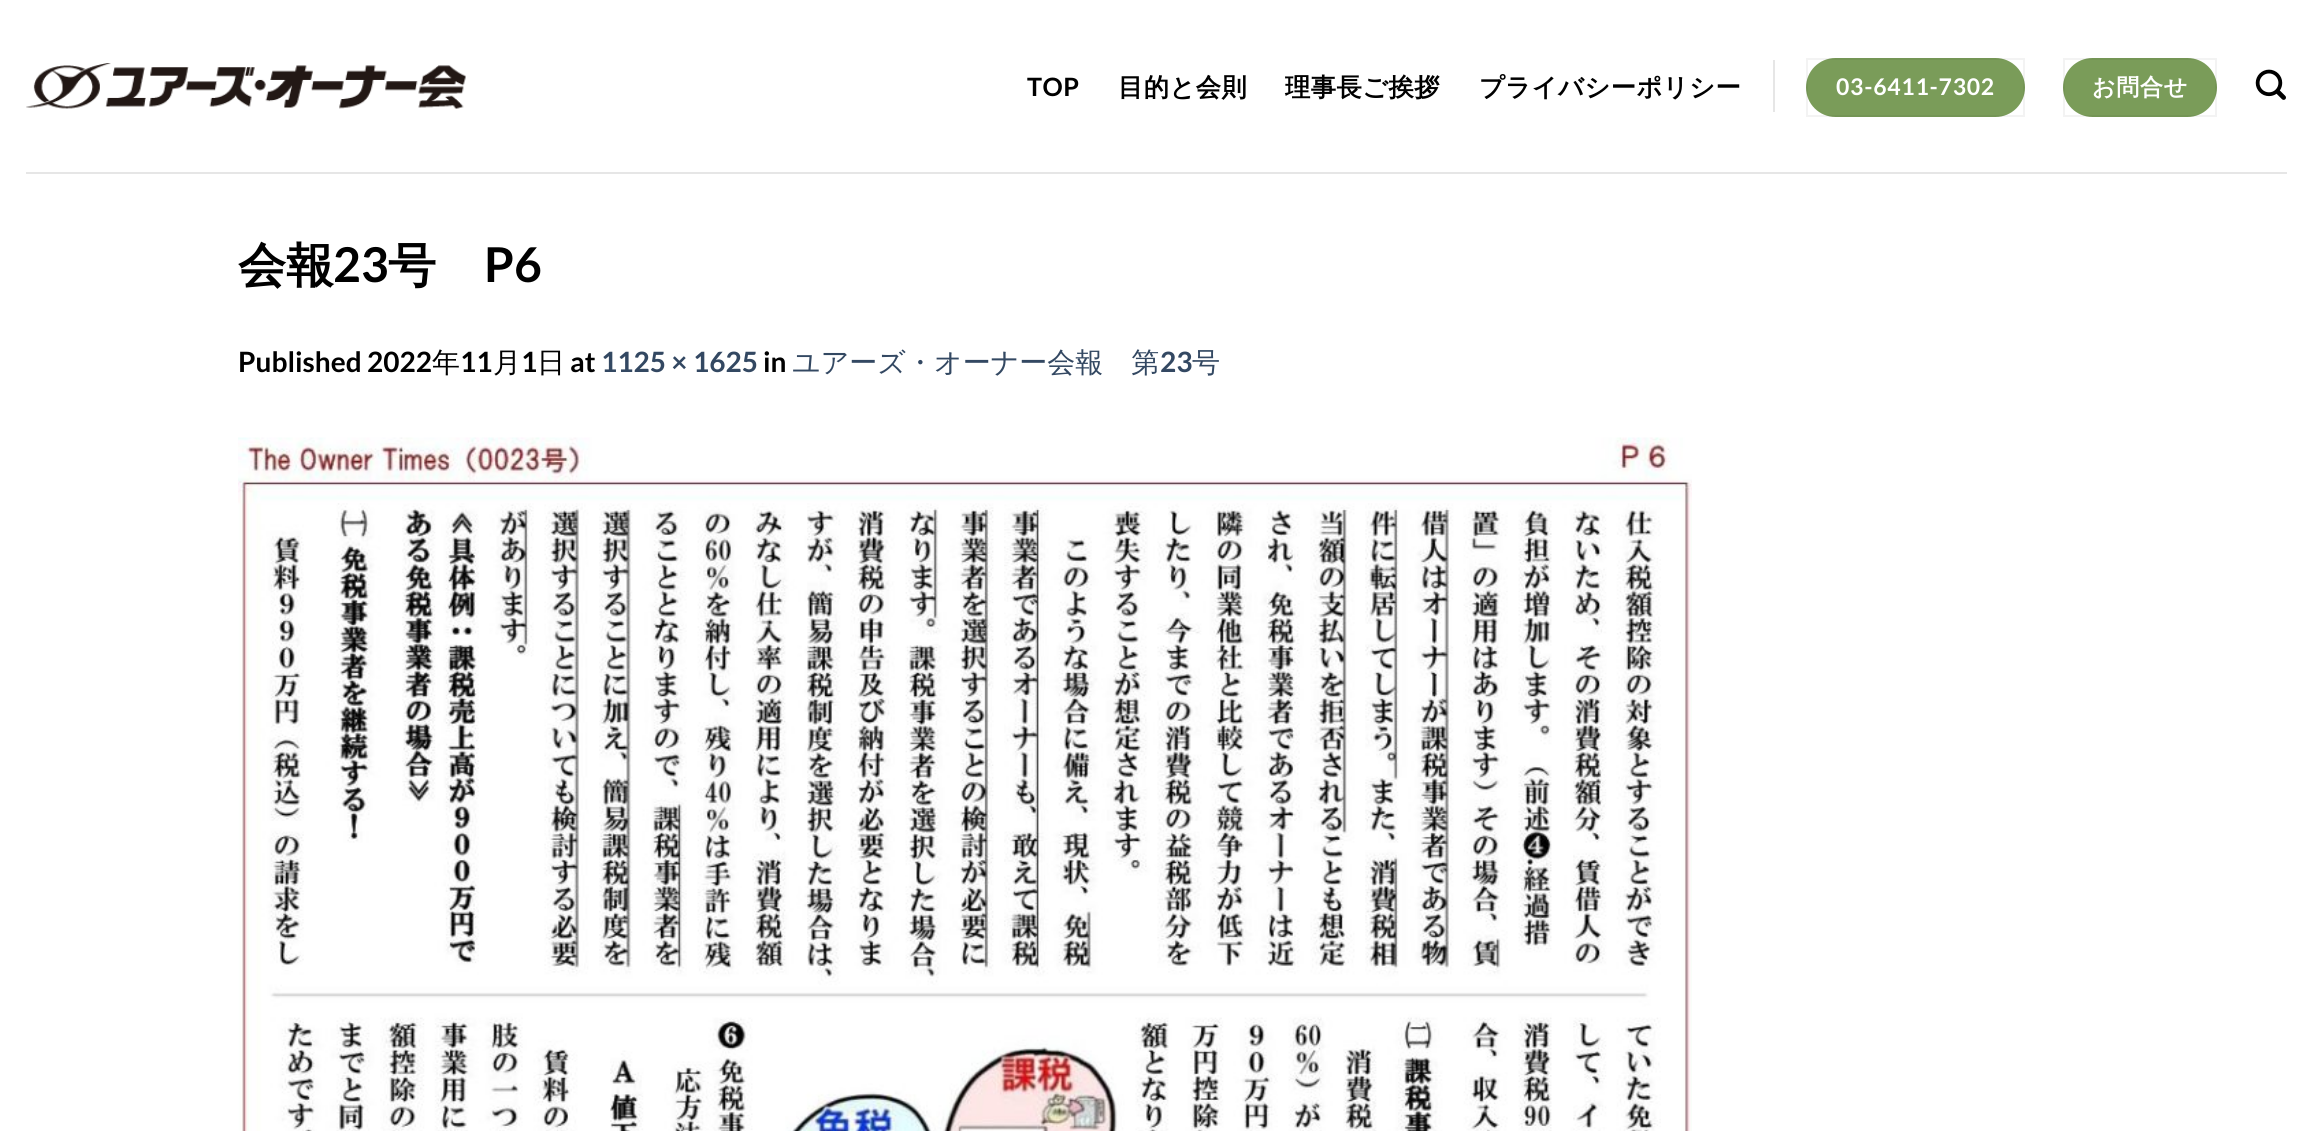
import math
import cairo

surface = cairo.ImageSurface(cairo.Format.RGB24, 2313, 1131)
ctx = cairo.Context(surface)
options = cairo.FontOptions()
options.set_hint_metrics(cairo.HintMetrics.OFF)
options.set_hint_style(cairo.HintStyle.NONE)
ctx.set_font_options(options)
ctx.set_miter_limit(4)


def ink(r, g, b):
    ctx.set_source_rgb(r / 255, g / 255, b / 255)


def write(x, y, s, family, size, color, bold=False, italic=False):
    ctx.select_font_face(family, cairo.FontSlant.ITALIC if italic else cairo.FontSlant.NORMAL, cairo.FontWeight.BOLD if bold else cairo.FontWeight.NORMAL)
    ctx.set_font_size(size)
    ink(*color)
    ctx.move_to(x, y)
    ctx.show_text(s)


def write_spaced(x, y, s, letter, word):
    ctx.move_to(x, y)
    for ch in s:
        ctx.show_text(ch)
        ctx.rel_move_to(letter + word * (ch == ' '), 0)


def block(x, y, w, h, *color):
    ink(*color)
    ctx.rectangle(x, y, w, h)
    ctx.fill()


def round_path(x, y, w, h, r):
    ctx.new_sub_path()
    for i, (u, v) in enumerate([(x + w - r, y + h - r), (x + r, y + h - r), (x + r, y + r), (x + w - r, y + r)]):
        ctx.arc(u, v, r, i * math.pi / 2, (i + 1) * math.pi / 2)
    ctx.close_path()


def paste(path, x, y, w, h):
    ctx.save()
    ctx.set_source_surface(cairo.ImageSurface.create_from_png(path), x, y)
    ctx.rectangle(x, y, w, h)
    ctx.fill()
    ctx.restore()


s1 = dict(family="WenQuanYi Zen Hei", size=48, color=(0, 0, 0), bold=True)
s2 = dict(family="Lato", size=48, color=(0, 0, 0), bold=True)
s3 = dict(family="Lato", size=28, color=(0, 0, 0), bold=True)
s4 = dict(family="WenQuanYi Zen Hei Medium", size=28, color=(0, 0, 0))
s5 = dict(family="Lato", size=28, color=(51, 72, 98), bold=True)
s6 = dict(family="WenQuanYi Zen Hei Medium", size=28, color=(51, 72, 98))

ink(255, 255, 255)
ctx.paint()
paste("pic1.png", 26, 63, 440, 46)
ctx.select_font_face("Lato", cairo.FontSlant.NORMAL, cairo.FontWeight.BOLD)
ctx.set_font_size(25.25)
ink(0, 0, 0)
write_spaced(1027, 96, "TOP", 0.5, 0)
ctx.select_font_face("WenQuanYi Zen Hei", cairo.FontSlant.NORMAL, cairo.FontWeight.BOLD)
write_spaced(1118, 96, "目的と会則", 0.5, 0)
write_spaced(1285, 96, "理事長ご挨拶", 0.5, 0)
write_spaced(1479, 96, "プライバシーポリシー", 0.5, 0)
block(1773, 60, 2, 52, 230, 230, 230)
ink(122, 156, 89)
round_path(1806, 58, 219, 59, 29.5)
ctx.fill()
ctx.rectangle(1807, 59, 217, 57)
ctx.set_source_rgba(0, 0, 0, 0.05)
ctx.stroke()
ctx.select_font_face("Lato", cairo.FontSlant.NORMAL, cairo.FontWeight.BOLD)
ctx.set_font_size(23)
ink(255, 255, 255)
write_spaced(1836, 95, "03-6411-7302", 0.75, 0)
ink(122, 156, 89)
round_path(2063, 58, 154, 59, 29.5)
ctx.fill()
ctx.rectangle(2064, 59, 152, 57)
ctx.set_source_rgba(0, 0, 0, 0.05)
ctx.stroke()
ctx.select_font_face("WenQuanYi Zen Hei", cairo.FontSlant.NORMAL, cairo.FontWeight.BOLD)
ink(255, 255, 255)
write_spaced(2092, 95, "お問合せ", 0.75, 0)
paste("pic2.png", 2255, 69, 31, 31)
block(26, 172, 2261, 2, 230, 230, 230)
write(238, 282, "会報", **s1)
write(333, 282, "23", **s2)
write(388, 282, "号", **s1)
write(484, 282, "P6", **s2)
write(238, 372, "Published 2022", **s3)
write(432, 372, "年", **s4)
write(460, 372, "11", **s3)
write(493, 372, "月", **s4)
write(521, 372, "1", **s3)
write(537, 372, "日", **s4)
write(570, 372, "at", **s3)
write(601, 372, "1125 × 1625", **s5)
write(763, 372, "in", **s3)
write(792, 372, "ユアーズ・オーナー会報　第", **s6)
write(1160, 372, "23", **s5)
write(1192, 372, "号", **s6)
paste("pic3.png", 238, 437, 1454, 694)
surface.write_to_png("screenshot.png")
